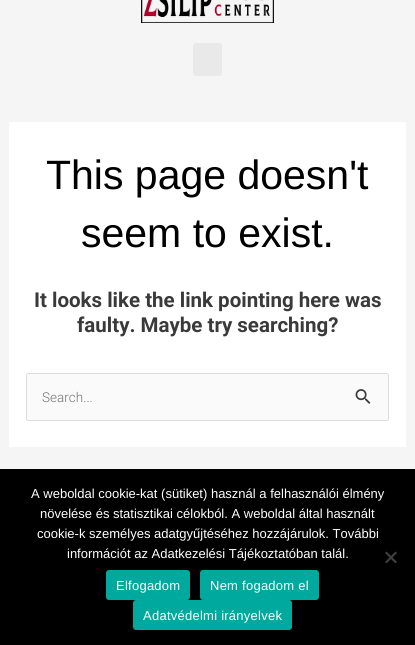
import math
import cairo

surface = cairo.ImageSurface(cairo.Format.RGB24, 415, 645)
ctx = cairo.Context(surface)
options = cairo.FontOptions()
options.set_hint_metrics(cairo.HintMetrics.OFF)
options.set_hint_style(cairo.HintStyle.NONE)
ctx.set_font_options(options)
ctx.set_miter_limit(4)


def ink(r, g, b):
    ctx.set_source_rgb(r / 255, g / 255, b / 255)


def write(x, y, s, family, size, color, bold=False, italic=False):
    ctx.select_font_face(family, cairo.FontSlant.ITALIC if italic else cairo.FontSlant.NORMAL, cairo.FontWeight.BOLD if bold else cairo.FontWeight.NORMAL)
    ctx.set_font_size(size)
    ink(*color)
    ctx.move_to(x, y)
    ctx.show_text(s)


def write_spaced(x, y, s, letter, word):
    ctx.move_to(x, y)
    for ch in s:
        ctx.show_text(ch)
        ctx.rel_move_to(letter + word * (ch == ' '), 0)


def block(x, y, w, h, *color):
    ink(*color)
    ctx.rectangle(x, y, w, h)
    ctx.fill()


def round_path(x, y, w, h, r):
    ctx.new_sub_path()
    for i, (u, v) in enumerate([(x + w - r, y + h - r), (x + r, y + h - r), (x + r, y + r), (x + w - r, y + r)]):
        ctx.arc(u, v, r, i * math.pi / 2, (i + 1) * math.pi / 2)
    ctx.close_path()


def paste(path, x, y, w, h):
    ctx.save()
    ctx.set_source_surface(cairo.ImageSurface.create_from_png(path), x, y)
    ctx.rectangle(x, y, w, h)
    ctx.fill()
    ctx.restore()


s1 = dict(family="Liberation Sans", size=41, color=(0, 0, 0))
s2 = dict(family="Roboto", size=20.5, color=(58, 58, 58), bold=True)
s3 = dict(family="Roboto Light", size=13.5, color=(117, 117, 117))
s4 = dict(family="Liberation Sans", size=13, color=(255, 255, 255))

ink(245, 245, 245)
ctx.paint()
paste("pic1.png", 141, 0, 133, 23)
ink(233, 233, 233)
round_path(193, 43, 29, 33, 3)
ctx.fill()
block(9, 122, 397, 325, 255, 255, 255)
write(46, 189, "This page doesn't", **s1)
write(81, 247, "seem to exist.", **s1)
write(34, 307, "It looks like the link pointing here was", **s2)
write(77, 332, "faulty. Maybe try searching?", **s2)
ink(250, 250, 250)
round_path(26.5, 373.5, 362, 47, 1.5)
ctx.fill_preserve()
ink(221, 221, 221)
ctx.set_line_width(1)
ctx.stroke()
write(42, 402, "Search...", **s3)
paste("pic2.png", 355, 389, 16, 15)
block(0, 469, 415, 176, 0, 0, 0)
write(31, 498, "A weboldal cookie-kat (sütiket) használ a felhasználói élmény", **s4)
write(40, 518, "növelése és statisztikai célokból. A weboldal által használt", **s4)
write(37, 538, "cookie-k személyes adatgyűjtéséhez hozzájárulok. További", **s4)
write(67, 558, "információt az Adatkezelési Tájékoztatóban talál.", **s4)
ink(64, 64, 64)
ctx.new_path()
ctx.move_to(395.5, 551.5)
ctx.line_to(397, 553)
ctx.line_to(386.5, 563.5)
ctx.line_to(385, 562)
ctx.close_path()
ctx.fill()
ctx.new_path()
ctx.move_to(385, 553)
ctx.line_to(386.5, 551.5)
ctx.line_to(397, 562)
ctx.line_to(395.5, 563.5)
ctx.close_path()
ctx.fill()
ink(0, 169, 157)
round_path(106, 570, 84, 30, 3)
ctx.fill()
ink(255, 255, 255)
write_spaced(116, 590, "Elfogadom", 0.25, 0)
ink(0, 169, 157)
round_path(200, 570, 119, 30, 3)
ctx.fill()
ink(255, 255, 255)
write_spaced(210, 590, "Nem fogadom el", 0.25, 0)
ink(0, 169, 157)
round_path(133, 600, 159, 30, 3)
ctx.fill()
ink(255, 255, 255)
write_spaced(143, 620, "Adatvédelmi irányelvek", 0.25, 0)
surface.write_to_png("screenshot.png")
